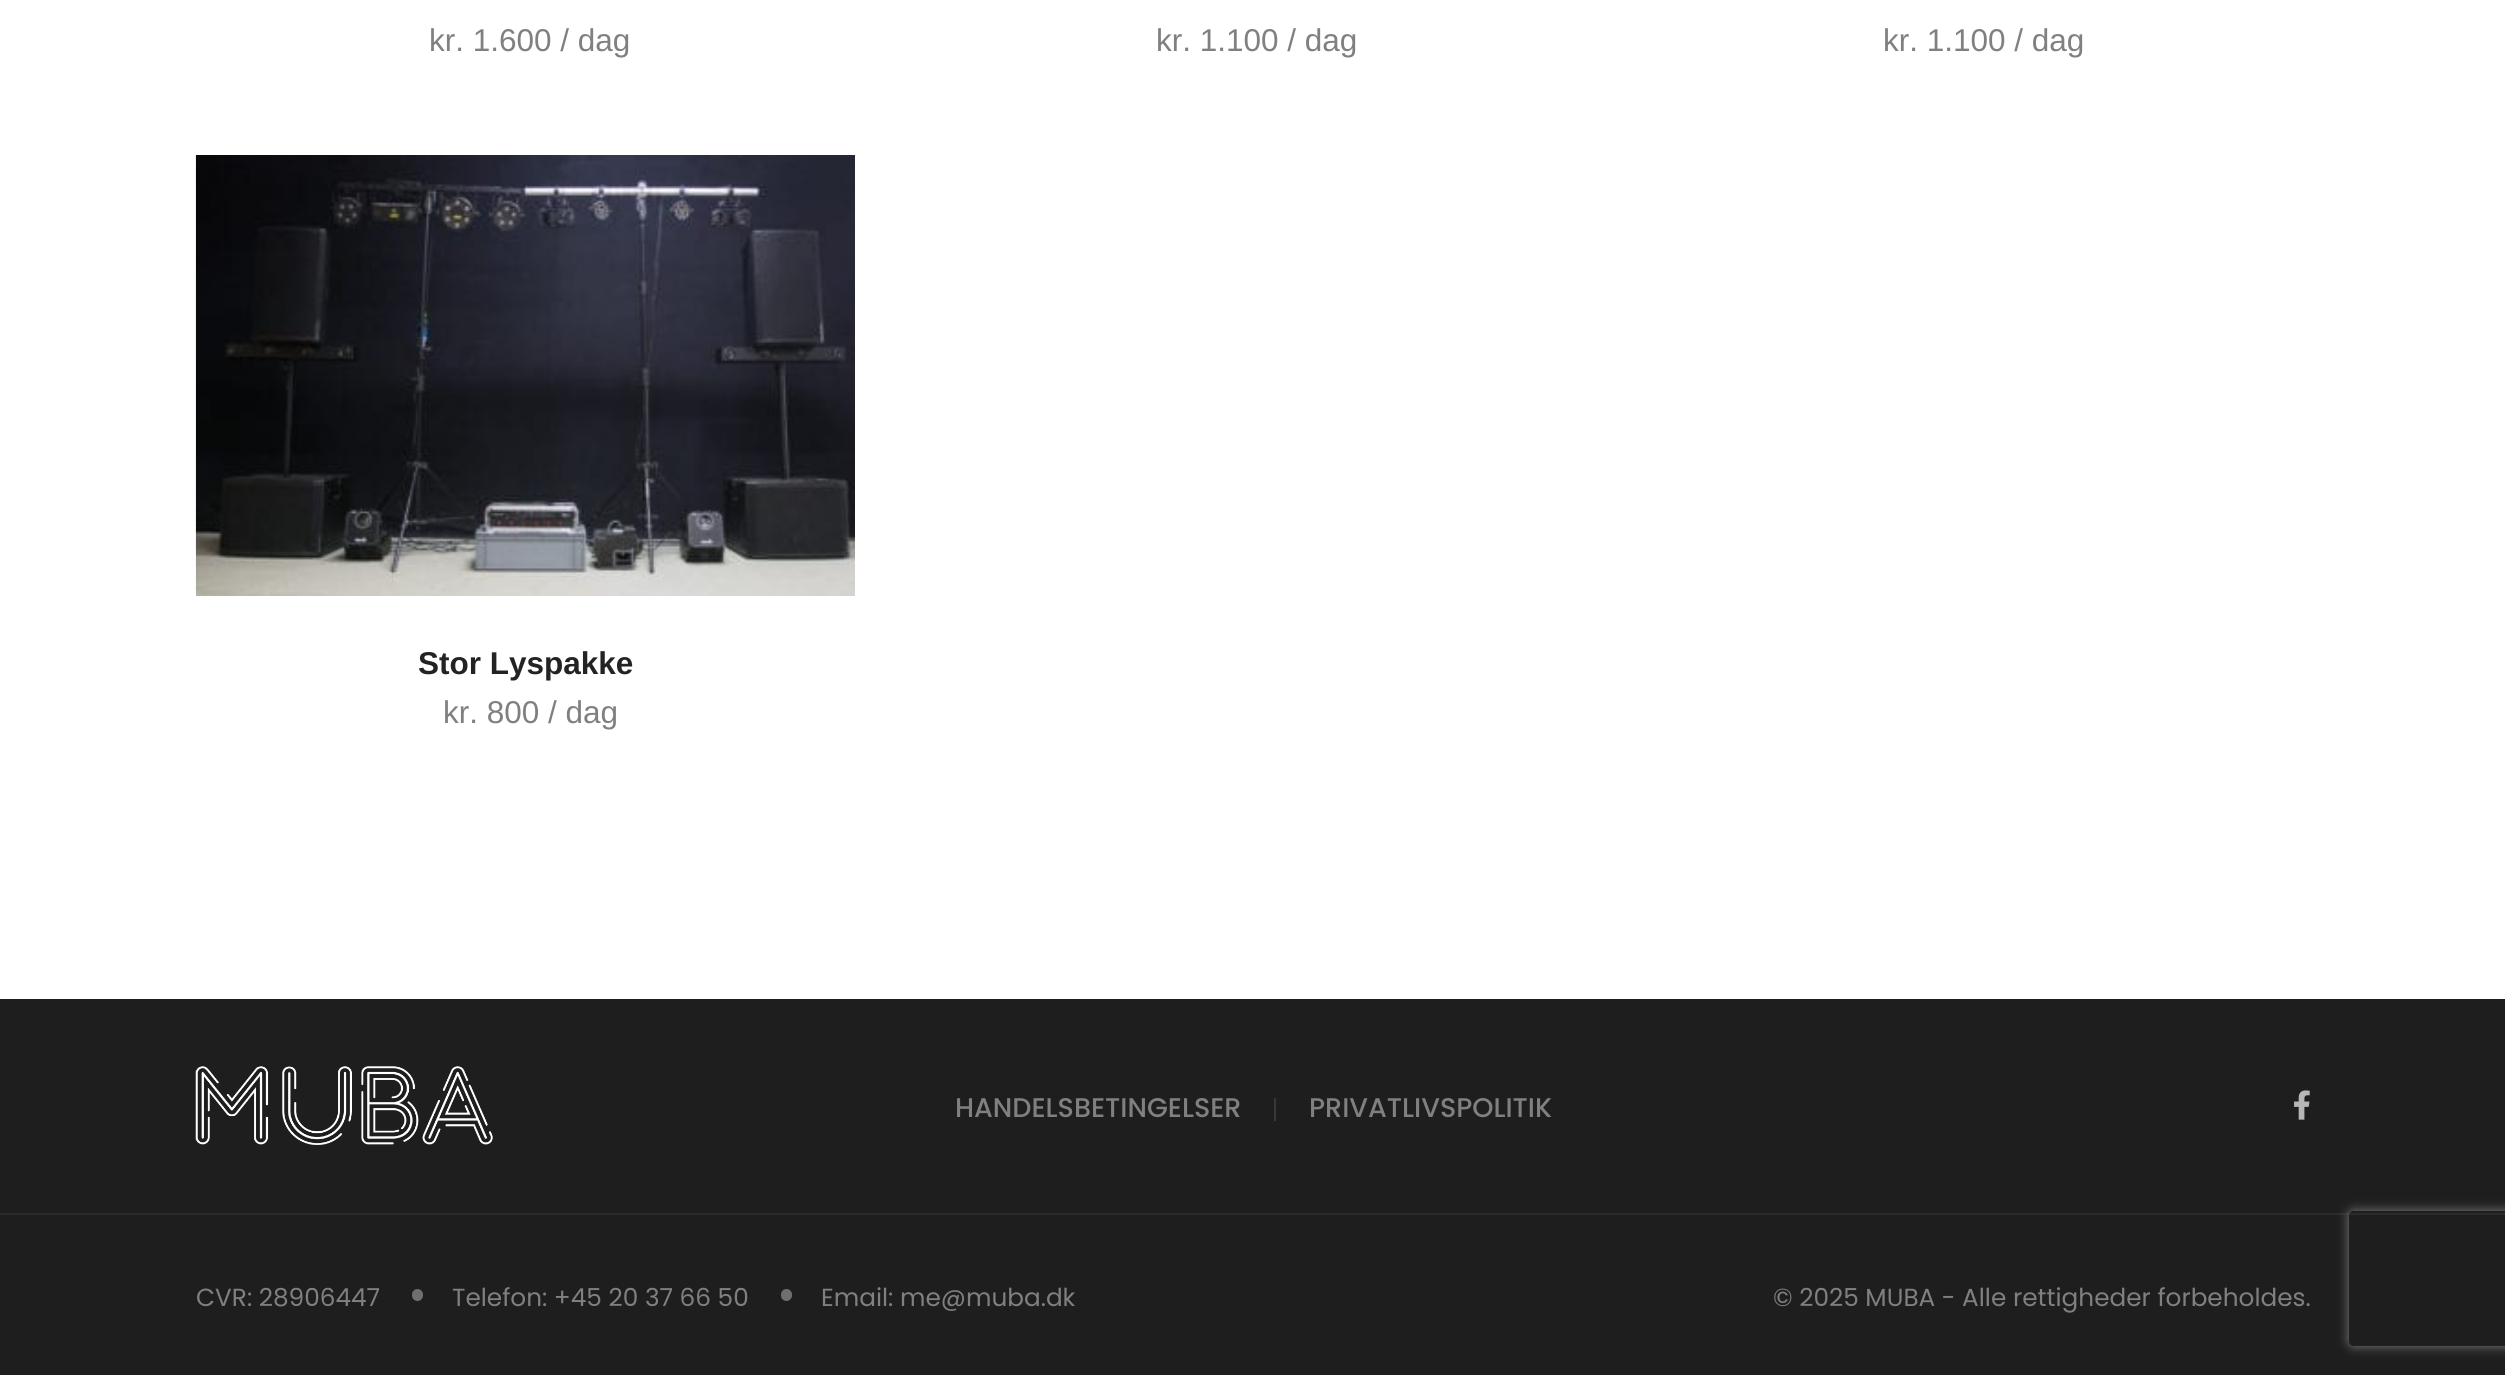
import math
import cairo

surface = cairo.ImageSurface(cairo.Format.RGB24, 2505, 1375)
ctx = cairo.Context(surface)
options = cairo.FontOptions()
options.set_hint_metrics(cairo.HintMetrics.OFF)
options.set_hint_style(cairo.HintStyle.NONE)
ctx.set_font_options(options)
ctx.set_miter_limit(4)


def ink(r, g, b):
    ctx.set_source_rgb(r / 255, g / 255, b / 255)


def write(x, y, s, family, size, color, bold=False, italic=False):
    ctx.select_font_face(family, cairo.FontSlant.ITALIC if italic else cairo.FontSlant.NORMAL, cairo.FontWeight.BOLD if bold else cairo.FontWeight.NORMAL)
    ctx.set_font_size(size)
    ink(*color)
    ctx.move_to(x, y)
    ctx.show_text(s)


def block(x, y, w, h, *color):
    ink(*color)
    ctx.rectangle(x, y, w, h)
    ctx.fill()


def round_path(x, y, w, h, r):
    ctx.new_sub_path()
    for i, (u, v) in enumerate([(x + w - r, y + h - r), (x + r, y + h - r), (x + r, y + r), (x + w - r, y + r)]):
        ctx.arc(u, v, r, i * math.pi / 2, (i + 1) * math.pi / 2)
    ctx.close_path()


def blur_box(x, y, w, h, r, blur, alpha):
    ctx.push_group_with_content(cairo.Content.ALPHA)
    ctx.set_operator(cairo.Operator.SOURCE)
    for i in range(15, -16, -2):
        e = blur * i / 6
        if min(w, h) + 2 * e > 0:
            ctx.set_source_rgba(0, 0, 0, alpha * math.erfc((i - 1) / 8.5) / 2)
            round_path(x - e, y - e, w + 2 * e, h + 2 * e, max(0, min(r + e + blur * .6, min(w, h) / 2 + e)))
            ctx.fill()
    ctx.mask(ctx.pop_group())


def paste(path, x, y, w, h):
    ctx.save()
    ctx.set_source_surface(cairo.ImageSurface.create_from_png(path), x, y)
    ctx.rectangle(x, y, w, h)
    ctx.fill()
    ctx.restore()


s1 = dict(family="Liberation Sans", size=31.5, color=(128, 128, 128))
s2 = dict(family="Liberation Sans", size=31.5, color=(35, 35, 35), bold=True)
s3 = dict(family="Poppins Medium", size=27, color=(128, 128, 128))
s4 = dict(family="Poppins", size=24.75, color=(128, 128, 128))

ink(255, 255, 255)
ctx.paint()
write(429, 51, "kr. 1.600 / dag", **s1)
write(1156, 51, "kr. 1.100 / dag", **s1)
write(1883, 51, "kr. 1.100 / dag", **s1)
paste("pic1.png", 195, 155, 660, 441)
write(418, 674, "Stor Lyspakke", **s2)
write(443, 723, "kr. 800 / dag", **s1)
block(0, 999, 2505, 214, 30, 30, 30)
paste("pic2.png", 195, 1066, 298, 79)
write(955, 1117, "HANDELSBETINGELSER", **s3)
block(1274, 1098, 2, 23, 56, 56, 56)
write(1309, 1117, "PRIVATLIVSPOLITIK", **s3)
paste("pic3.png", 2294, 1090, 16, 30)
block(0, 1215, 2505, 160, 30, 30, 30)
block(0, 1213, 2505, 2, 43, 43, 43)
write(196, 1306, "CVR: 28906447", **s4)
ink(111, 111, 111)
round_path(412, 1289, 11, 12, 5.5)
ctx.fill()
write(452, 1306, "Telefon: +45 20 37 66 50", **s4)
ink(111, 111, 111)
round_path(781, 1289, 11, 12, 5.5)
ctx.fill()
write(821, 1306, "Email: me@muba.dk", **s4)
write(1773, 1306, "© 2025 MUBA - Alle rettigheder forbeholdes.", **s4)
ctx.save()
ctx.set_fill_rule(cairo.FillRule.EVEN_ODD)
ctx.new_path()
ctx.move_to(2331, 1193)
ctx.line_to(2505, 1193)
ctx.line_to(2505, 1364)
ctx.line_to(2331, 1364)
ctx.close_path()
ctx.move_to(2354, 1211)
ctx.line_to(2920, 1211)
ctx.curve_to(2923, 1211, 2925, 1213, 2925, 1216)
ctx.line_to(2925, 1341)
ctx.curve_to(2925, 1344, 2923, 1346, 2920, 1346)
ctx.line_to(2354, 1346)
ctx.curve_to(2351, 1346, 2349, 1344, 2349, 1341)
ctx.line_to(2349, 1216)
ctx.curve_to(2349, 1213, 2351, 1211, 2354, 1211)
ctx.close_path()
ctx.clip()
ink(128, 128, 128)
blur_box(2349, 1211, 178, 135, 5, 5.5, 1)
ctx.restore()
surface.write_to_png("screenshot.png")
